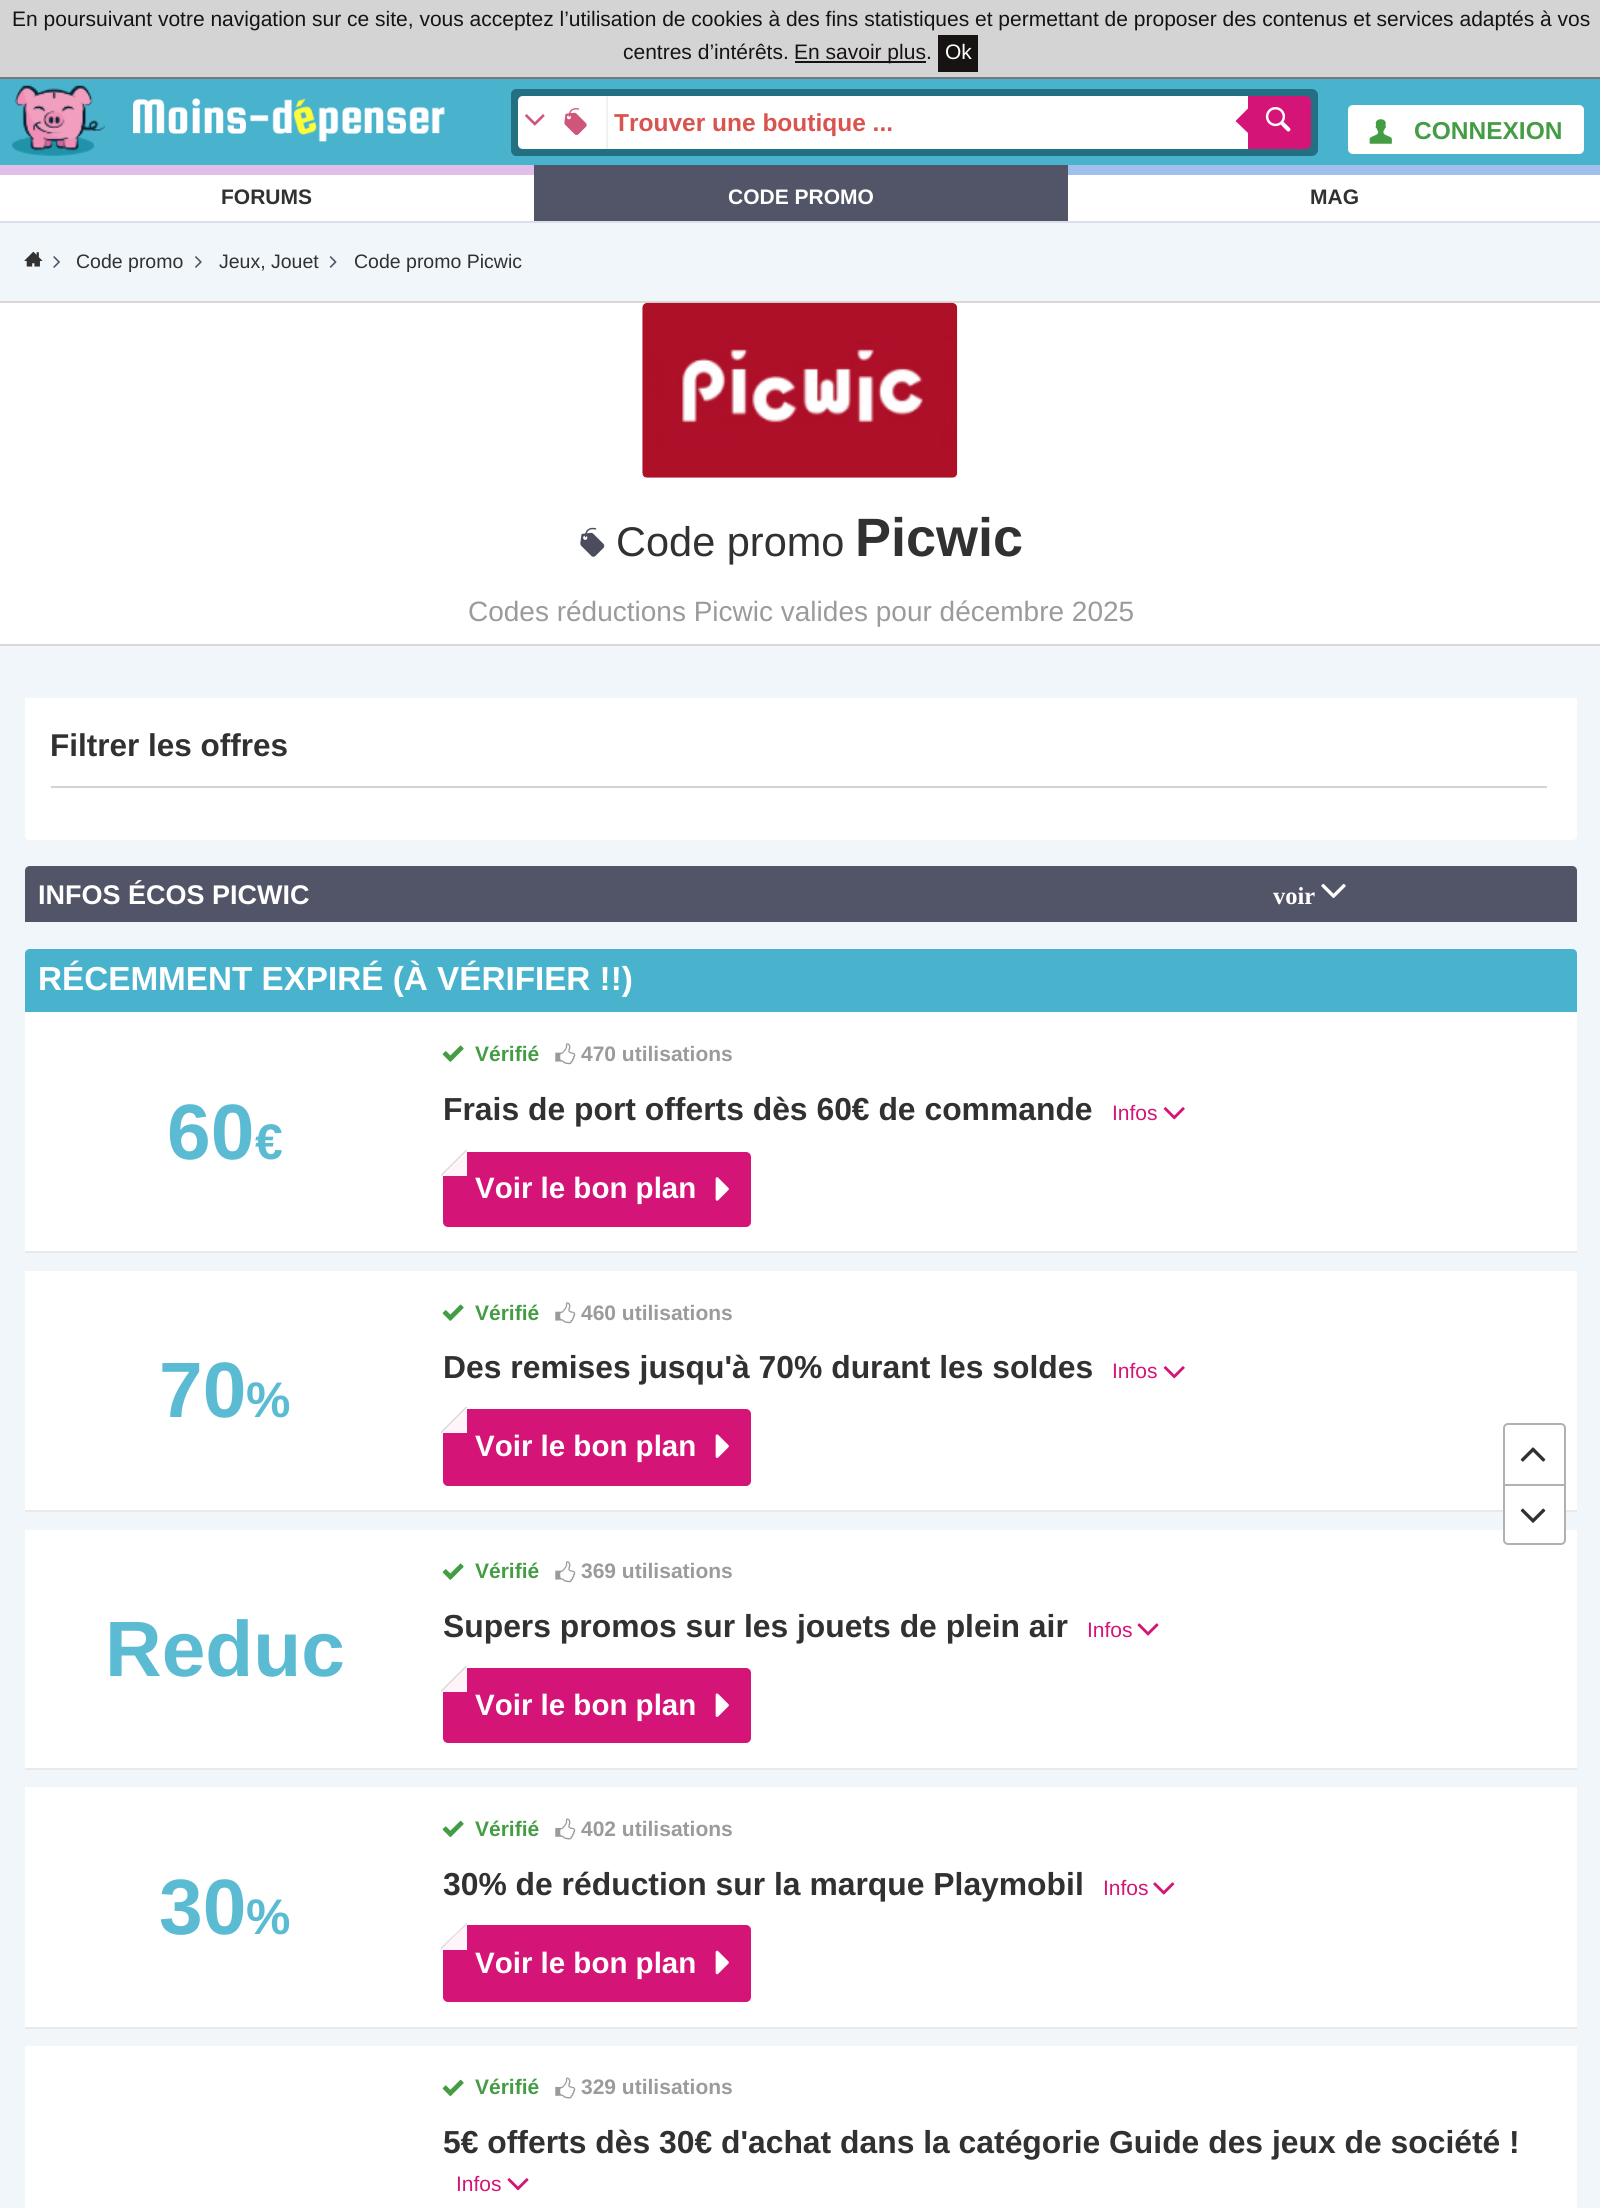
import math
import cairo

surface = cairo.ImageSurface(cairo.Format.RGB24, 1600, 2208)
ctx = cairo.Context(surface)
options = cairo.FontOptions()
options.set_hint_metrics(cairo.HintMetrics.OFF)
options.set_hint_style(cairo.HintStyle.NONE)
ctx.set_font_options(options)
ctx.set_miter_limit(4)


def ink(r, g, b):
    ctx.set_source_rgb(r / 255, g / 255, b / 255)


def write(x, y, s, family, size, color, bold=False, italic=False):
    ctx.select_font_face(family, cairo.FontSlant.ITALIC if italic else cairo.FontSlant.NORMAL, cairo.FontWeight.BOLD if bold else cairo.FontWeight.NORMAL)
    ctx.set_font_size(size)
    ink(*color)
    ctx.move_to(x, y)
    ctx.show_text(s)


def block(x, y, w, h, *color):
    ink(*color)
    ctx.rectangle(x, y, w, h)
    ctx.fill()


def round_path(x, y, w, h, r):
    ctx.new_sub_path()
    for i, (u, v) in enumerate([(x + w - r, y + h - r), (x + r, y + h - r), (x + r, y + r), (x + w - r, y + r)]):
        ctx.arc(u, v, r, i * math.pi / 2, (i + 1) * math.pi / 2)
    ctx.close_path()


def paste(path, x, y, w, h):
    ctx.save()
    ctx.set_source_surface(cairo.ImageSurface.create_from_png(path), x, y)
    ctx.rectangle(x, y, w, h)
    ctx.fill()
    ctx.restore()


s1 = dict(family="Liberation Sans", size=21, color=(23, 19, 19))
s2 = dict(family="Liberation Sans", size=21, color=(255, 255, 255))
s3 = dict(family="Liberation Sans", size=24.5, color=(217, 83, 79), bold=True)
s4 = dict(family="Liberation Sans", size=24.5, color=(68, 157, 68), bold=True)
s5 = dict(family="Liberation Sans", size=21, color=(49, 49, 49), bold=True)
s6 = dict(family="Liberation Sans", size=21, color=(255, 255, 255), bold=True)
s7 = dict(family="Liberation Sans", size=19.5, color=(49, 49, 49))
s8 = dict(family="Liberation Sans", size=41.5, color=(49, 49, 49))
s9 = dict(family="Liberation Sans", size=54, color=(49, 49, 49), bold=True)
s10 = dict(family="Liberation Sans", size=28, color=(155, 155, 155))
s11 = dict(family="Liberation Sans", size=31.5, color=(49, 49, 49), bold=True)
s12 = dict(family="Liberation Sans", size=27, color=(255, 255, 255), bold=True)
s13 = dict(family="Liberation Serif", size=24.5, color=(255, 255, 255), bold=True)
s14 = dict(family="Liberation Sans", size=33.25, color=(255, 255, 255), bold=True)
s15 = dict(family="Liberation Sans", size=78.5, color=(91, 187, 211), bold=True)
s16 = dict(family="Liberation Sans", size=50, color=(91, 187, 211), bold=True)
s17 = dict(family="Liberation Sans", size=21, color=(68, 157, 68), bold=True)
s18 = dict(family="Liberation Sans", size=21, color=(155, 155, 155), bold=True)
s19 = dict(family="Liberation Sans", size=31.85, color=(49, 49, 49), bold=True)
s20 = dict(family="Liberation Sans", size=21, color=(212, 21, 119))
s21 = dict(family="Liberation Sans", size=29.5, color=(255, 255, 255), bold=True)

ink(241, 246, 251)
ctx.paint()
block(0, 0, 1600, 77, 212, 212, 212)
block(0, 77, 1600, 2, 120, 120, 120)
write(12, 26, "En poursuivant votre navigation sur ce site, vous acceptez l’utilisation de cookies à des fins statistiques et permettant de proposer des contenus et services adaptés à vos", **s1)
write(623, 59, "centres d’intérêts.", **s1)
block(795, 61, 131, 2, 23, 19, 19)
write(794, 59, "En savoir plus.", **s1)
block(938, 35, 40, 37, 23, 19, 19)
write(945, 59, "Ok", **s2)
block(0, 79, 1600, 86, 73, 179, 206)
paste("pic1.png", 12, 85, 93, 71)
paste("pic2.png", 133, 98, 312, 44)
block(518, 96, 5, 53, 35, 112, 131)
ctx.set_fill_rule(cairo.FillRule.EVEN_ODD)
ctx.new_path()
ctx.move_to(516, 89)
ctx.line_to(606, 89)
ctx.line_to(606, 156)
ctx.line_to(516, 156)
ctx.curve_to(513, 156, 511, 153, 511, 150)
ctx.line_to(511, 94)
ctx.curve_to(511, 92, 513, 89, 516, 89)
ctx.close_path()
ctx.move_to(518, 96)
ctx.line_to(606, 96)
ctx.line_to(606, 149)
ctx.line_to(518, 149)
ctx.close_path()
ctx.fill()
ink(255, 255, 255)
ctx.new_path()
ctx.move_to(523, 96)
ctx.line_to(606, 96)
ctx.line_to(606, 149)
ctx.line_to(523, 149)
ctx.curve_to(520, 149, 518, 147, 518, 144)
ctx.line_to(518, 101)
ctx.curve_to(518, 98, 520, 96, 523, 96)
ctx.close_path()
ctx.fill()
paste("pic3.png", 525, 114, 20, 12)
paste("pic4.png", 564, 108, 23, 27)
block(606, 89, 642, 7, 35, 112, 131)
block(606, 149, 642, 7, 35, 112, 131)
block(608, 96, 640, 53, 255, 255, 255)
block(606, 96, 2, 53, 241, 241, 241)
write(614, 131, "Trouver une boutique ...", **s3)
block(1306, 96, 5, 53, 35, 112, 131)
ctx.new_path()
ctx.move_to(1248, 89)
ctx.line_to(1312, 89)
ctx.curve_to(1315, 89, 1318, 92, 1318, 94)
ctx.line_to(1318, 150)
ctx.curve_to(1318, 153, 1315, 156, 1312, 156)
ctx.line_to(1248, 156)
ctx.close_path()
ctx.move_to(1248, 96)
ctx.line_to(1311, 96)
ctx.line_to(1311, 149)
ctx.line_to(1248, 149)
ctx.close_path()
ctx.fill()
ink(212, 21, 119)
ctx.new_path()
ctx.move_to(1249, 97)
ctx.line_to(1306, 97)
ctx.curve_to(1308, 97, 1310, 99, 1310, 101)
ctx.line_to(1310, 144)
ctx.curve_to(1310, 146, 1308, 148, 1306, 148)
ctx.line_to(1249, 148)
ctx.close_path()
ctx.fill_preserve()
ctx.stroke()
ctx.set_fill_rule(cairo.FillRule.WINDING)
ctx.new_path()
ctx.move_to(1248, 108.5)
ctx.line_to(1248, 133)
ctx.line_to(1235.5, 121)
ctx.close_path()
ctx.fill()
paste("pic5.png", 1265, 107, 26, 25)
ink(255, 255, 255)
round_path(1348, 105, 236, 49, 5)
ctx.fill()
paste("pic6.png", 1369, 119, 23, 25)
write(1414, 139, "CONNEXION", **s4)
block(0, 175, 1600, 46, 255, 255, 255)
block(0, 165, 534, 10, 225, 190, 231)
write(221, 204, "FORUMS", **s5)
block(534, 165, 534, 56, 82, 84, 103)
write(728, 204, "CODE PROMO", **s6)
block(1068, 165, 532, 10, 158, 192, 235)
write(1310, 204, "MAG", **s5)
block(0, 221, 1600, 2, 220, 222, 236)
paste("pic7.png", 24, 251, 19, 16)
paste("pic8.png", 53, 256, 7, 12)
write(76, 268, "Code promo", **s7)
paste("pic9.png", 195, 256, 7, 12)
write(219, 268, "Jeux, Jouet", **s7)
paste("pic10.png", 329, 256, 8, 12)
write(354, 268, "Code promo Picwic", **s7)
block(0, 303, 1600, 341, 255, 255, 255)
block(0, 301, 1600, 2, 222, 214, 214)
block(0, 644, 1600, 2, 222, 214, 214)
paste("pic11.png", 642, 302, 316, 176)
paste("pic12.png", 580, 527, 25, 30)
write(616, 556, "Code promo", **s8)
write(855, 556, "Picwic", **s9)
write(468, 621, "Codes réductions Picwic valides pour décembre 2025", **s10)
ink(255, 255, 255)
ctx.new_path()
ctx.move_to(25, 698)
ctx.line_to(1577, 698)
ctx.line_to(1577, 835)
ctx.curve_to(1577, 838, 1575, 840, 1572, 840)
ctx.line_to(30, 840)
ctx.curve_to(27, 840, 25, 838, 25, 835)
ctx.close_path()
ctx.fill()
block(51, 786, 1496, 2, 211, 211, 211)
write(50, 756, "Filtrer les offres", **s11)
ink(82, 84, 103)
ctx.new_path()
ctx.move_to(30, 866)
ctx.line_to(1572, 866)
ctx.curve_to(1575, 866, 1577, 868, 1577, 871)
ctx.line_to(1577, 922)
ctx.line_to(25, 922)
ctx.line_to(25, 871)
ctx.curve_to(25, 868, 27, 866, 30, 866)
ctx.close_path()
ctx.fill()
write(38, 904, "INFOS ÉCOS PICWIC", **s12)
write(1273, 904, "voir", **s13)
paste("pic13.png", 1321, 883, 25, 16)
ink(73, 179, 206)
ctx.new_path()
ctx.move_to(30, 949)
ctx.line_to(1572, 949)
ctx.curve_to(1575, 949, 1577, 951, 1577, 954)
ctx.line_to(1577, 1012)
ctx.line_to(25, 1012)
ctx.line_to(25, 954)
ctx.curve_to(25, 951, 27, 949, 30, 949)
ctx.close_path()
ctx.fill()
write(38, 990, "RÉCEMMENT EXPIRÉ (À VÉRIFIER !!)", **s14)
block(25, 1012, 1552, 239, 255, 255, 255)
block(25, 1251, 1552, 2, 233, 233, 233)
write(167, 1159, "60", **s15)
write(255, 1159, "€", **s16)
paste("pic14.png", 442, 1045, 22, 17)
write(475, 1061, "Vérifié", **s17)
paste("pic15.png", 555, 1043, 21, 22)
write(581, 1061, "470 utilisations", **s18)
write(443, 1120, "Frais de port offerts dès 60€ de commande", **s19)
write(1112, 1120, "Infos", **s20)
paste("pic16.png", 1163, 1107, 22, 13)
round_path(443, 1152, 308, 75, 5)
ctx.fill()
gradient = cairo.LinearGradient(441, 1150, 467, 1176)
gradient.add_color_stop_rgba(0.45, 1, 1, 1, 1)
gradient.add_color_stop_rgba(0.5, 0.839, 0.839, 0.839, 1)
gradient.add_color_stop_rgba(0.51, 0.996, 0.957, 0.976, 1)
gradient.add_color_stop_rgba(0.8, 0.996, 0.957, 0.976, 1)
ctx.set_source(gradient)
ctx.rectangle(441, 1150, 26, 26)
ctx.fill()
write(475, 1198, "Voir le bon plan", **s21)
paste("pic17.png", 715, 1177, 14, 24)
block(25, 1271, 1552, 239, 255, 255, 255)
block(25, 1510, 1552, 2, 233, 233, 233)
write(159, 1417, "70", **s15)
write(246, 1417, "%", **s16)
paste("pic14.png", 442, 1304, 22, 17)
write(475, 1320, "Vérifié", **s17)
paste("pic15.png", 555, 1302, 21, 22)
write(581, 1320, "460 utilisations", **s18)
write(443, 1378, "Des remises jusqu'à 70% durant les soldes", **s19)
write(1112, 1378, "Infos", **s20)
paste("pic16.png", 1163, 1366, 22, 13)
round_path(443, 1409, 308, 77, 5)
ctx.fill()
gradient = cairo.LinearGradient(441, 1407, 467, 1433)
gradient.add_color_stop_rgba(0.45, 1, 1, 1, 1)
gradient.add_color_stop_rgba(0.5, 0.839, 0.839, 0.839, 1)
gradient.add_color_stop_rgba(0.51, 0.996, 0.957, 0.976, 1)
gradient.add_color_stop_rgba(0.8, 0.996, 0.957, 0.976, 1)
ctx.set_source(gradient)
ctx.rectangle(441, 1407, 26, 26)
ctx.fill()
write(475, 1456, "Voir le bon plan", **s21)
paste("pic18.png", 715, 1434, 14, 24)
block(25, 1530, 1552, 238, 255, 255, 255)
block(25, 1768, 1552, 2, 233, 233, 233)
write(105, 1676, "Reduc", **s15)
paste("pic14.png", 442, 1563, 22, 17)
write(475, 1578, "Vérifié", **s17)
paste("pic15.png", 555, 1561, 21, 22)
write(581, 1578, "369 utilisations", **s18)
write(443, 1637, "Supers promos sur les jouets de plein air", **s19)
write(1087, 1637, "Infos", **s20)
paste("pic19.png", 1137, 1623, 22, 13)
round_path(443, 1668, 308, 75, 5)
ctx.fill()
gradient = cairo.LinearGradient(441, 1666, 467, 1692)
gradient.add_color_stop_rgba(0.45, 1, 1, 1, 1)
gradient.add_color_stop_rgba(0.5, 0.839, 0.839, 0.839, 1)
gradient.add_color_stop_rgba(0.51, 0.996, 0.957, 0.976, 1)
gradient.add_color_stop_rgba(0.8, 0.996, 0.957, 0.976, 1)
ctx.set_source(gradient)
ctx.rectangle(441, 1666, 26, 26)
ctx.fill()
write(475, 1715, "Voir le bon plan", **s21)
paste("pic18.png", 715, 1693, 14, 24)
block(25, 1787, 1552, 240, 255, 255, 255)
block(25, 2027, 1552, 2, 233, 233, 233)
write(159, 1934, "30", **s15)
write(246, 1934, "%", **s16)
paste("pic20.png", 442, 1820, 22, 18)
write(475, 1836, "Vérifié", **s17)
paste("pic21.png", 555, 1818, 21, 22)
write(581, 1836, "402 utilisations", **s18)
write(443, 1895, "30% de réduction sur la marque Playmobil", **s19)
write(1103, 1895, "Infos", **s20)
paste("pic22.png", 1153, 1882, 22, 13)
round_path(443, 1925, 308, 77, 5)
ctx.fill()
gradient = cairo.LinearGradient(441, 1923, 467, 1950)
gradient.add_color_stop_rgba(0.45, 1, 1, 1, 1)
gradient.add_color_stop_rgba(0.5, 0.839, 0.839, 0.839, 1)
gradient.add_color_stop_rgba(0.51, 0.996, 0.957, 0.976, 1)
gradient.add_color_stop_rgba(0.8, 0.996, 0.957, 0.976, 1)
ctx.set_source(gradient)
ctx.rectangle(441, 1923, 26, 27)
ctx.fill()
write(475, 1973, "Voir le bon plan", **s21)
paste("pic23.png", 715, 1950, 14, 25)
block(25, 2046, 1552, 162, 255, 255, 255)
paste("pic20.png", 442, 2079, 22, 18)
write(475, 2094, "Vérifié", **s17)
paste("pic21.png", 555, 2077, 21, 22)
write(581, 2094, "329 utilisations", **s18)
write(443, 2153, "5€ offerts dès 30€ d'achat dans la catégorie Guide des jeux de société !", **s19)
write(456, 2191, "Infos", **s20)
paste("pic24.png", 507, 2178, 22, 13)
ink(255, 255, 255)
round_path(1504, 1424, 61, 120, 4)
ctx.fill_preserve()
ink(177, 177, 177)
ctx.stroke()
block(1505, 1484, 60, 2, 177, 177, 177)
paste("pic25.png", 1520, 1447, 26, 15)
paste("pic26.png", 1520, 1508, 26, 15)
surface.write_to_png("screenshot.png")
